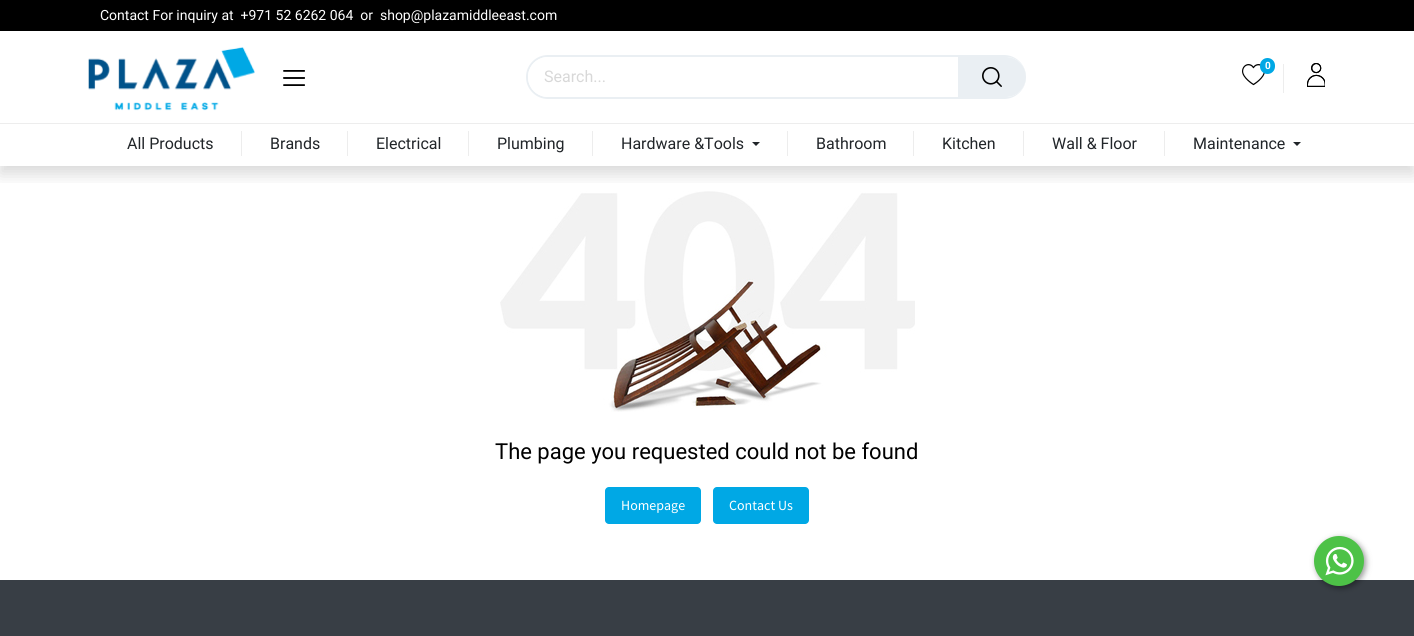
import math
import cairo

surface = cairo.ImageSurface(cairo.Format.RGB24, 1414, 636)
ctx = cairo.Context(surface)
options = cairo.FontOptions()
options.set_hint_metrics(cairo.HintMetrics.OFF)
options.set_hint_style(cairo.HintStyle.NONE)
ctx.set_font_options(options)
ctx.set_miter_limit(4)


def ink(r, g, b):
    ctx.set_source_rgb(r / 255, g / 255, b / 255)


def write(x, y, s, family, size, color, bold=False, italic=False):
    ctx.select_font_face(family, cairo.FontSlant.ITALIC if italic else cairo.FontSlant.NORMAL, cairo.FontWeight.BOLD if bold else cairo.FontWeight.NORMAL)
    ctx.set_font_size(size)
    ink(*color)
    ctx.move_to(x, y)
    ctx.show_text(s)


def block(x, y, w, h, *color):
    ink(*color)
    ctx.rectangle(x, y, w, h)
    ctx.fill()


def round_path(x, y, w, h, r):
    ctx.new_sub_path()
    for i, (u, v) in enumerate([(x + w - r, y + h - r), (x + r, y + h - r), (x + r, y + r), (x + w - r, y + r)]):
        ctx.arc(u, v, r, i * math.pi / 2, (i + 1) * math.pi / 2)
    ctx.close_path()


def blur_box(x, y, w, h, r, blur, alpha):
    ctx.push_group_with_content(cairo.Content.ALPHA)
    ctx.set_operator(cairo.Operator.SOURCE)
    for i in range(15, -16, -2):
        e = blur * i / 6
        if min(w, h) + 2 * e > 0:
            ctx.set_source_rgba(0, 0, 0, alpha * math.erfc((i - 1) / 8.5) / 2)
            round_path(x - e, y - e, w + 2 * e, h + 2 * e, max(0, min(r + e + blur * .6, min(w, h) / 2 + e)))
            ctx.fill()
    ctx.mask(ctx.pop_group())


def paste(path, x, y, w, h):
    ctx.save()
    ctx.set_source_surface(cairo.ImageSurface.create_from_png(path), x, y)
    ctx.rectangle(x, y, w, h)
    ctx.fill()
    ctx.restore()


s1 = dict(family="Roboto", size=14, color=(255, 255, 255))
s2 = dict(family="Roboto", size=10, color=(255, 255, 255), bold=True)
s3 = dict(family="Roboto", size=16, color=(216, 216, 216))
s4 = dict(family="Roboto", size=16, color=(33, 37, 41))
s5 = dict(family="Roboto", size=22, color=(0, 0, 0))
s6 = dict(family="Source Sans Pro", size=14, color=(255, 255, 255))

ink(255, 255, 255)
ctx.paint()
paste("pic7.png", 500, 191, 415, 221)
ctx.save()
ctx.rectangle(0, 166, 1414, 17)
ctx.clip()
ink(0, 0, 0)
blur_box(0, 8, 1414, 166, 0, 8, 0.15)
ctx.restore()
block(0, 0, 1414, 31, 0, 0, 0)
write(100, 20, "Contact For inquiry at  +971 52 6262 064  or  shop@plazamiddleeast.com", **s1)
paste("pic1.png", 88, 47, 167, 64)
paste("pic2.png", 283, 70, 22, 16)
block(1283, 64, 1, 29, 237, 237, 237)
paste("pic3.png", 1242, 64, 23, 22)
ink(0, 168, 229)
round_path(1260, 58, 15, 16, 7.5)
ctx.fill()
write(1265, 69, "0", **s2)
paste("pic4.png", 1307, 63, 18, 24)
paste("pic5.png", 1307, 63, 18, 24)
round_path(527, 56, 498, 42, 21)
ink(234, 239, 243)
ctx.stroke()
ink(255, 255, 255)
round_path(528, 57, 498, 40, 20)
ctx.fill()
write(544, 82, "Search...", **s3)
ink(234, 239, 243)
ctx.new_path()
ctx.move_to(958, 57)
ctx.line_to(1006, 57)
ctx.curve_to(1017, 57, 1026, 66, 1026, 77)
ctx.curve_to(1026, 88, 1017, 97, 1006, 97)
ctx.line_to(958, 97)
ctx.close_path()
ctx.fill()
paste("pic6.png", 982, 67, 20, 20)
block(0, 123, 1414, 1, 237, 237, 237)
write(127, 149, "All Products", **s4)
block(241, 131, 1, 25, 237, 237, 237)
write(270, 149, "Brands", **s4)
block(347, 131, 1, 25, 237, 237, 237)
write(376, 149, "Electrical", **s4)
block(468, 131, 1, 25, 237, 237, 237)
write(497, 149, "Plumbing", **s4)
block(592, 131, 1, 25, 237, 237, 237)
write(621, 149, "Hardware &Tools", **s4)
ctx.new_path()
ctx.move_to(752, 142)
ctx.line_to(760, 142)
ctx.line_to(756, 146)
ctx.close_path()
ctx.fill()
block(787, 131, 1, 25, 237, 237, 237)
write(816, 149, "Bathroom", **s4)
block(913, 131, 1, 25, 237, 237, 237)
write(942, 149, "Kitchen", **s4)
block(1023, 131, 1, 25, 237, 237, 237)
write(1052, 149, "Wall & Floor", **s4)
block(1164, 131, 1, 25, 237, 237, 237)
write(1193, 149, "Maintenance", **s4)
ctx.new_path()
ctx.move_to(1293, 142)
ctx.line_to(1301, 142)
ctx.line_to(1297, 146)
ctx.close_path()
ctx.fill()
write(495, 459, "The page you requested could not be found", **s5)
ink(0, 168, 229)
round_path(605, 487, 96, 37, 4)
ctx.fill()
write(621, 510, "Homepage", **s6)
ink(0, 168, 229)
round_path(713, 487, 96, 37, 4)
ctx.fill()
write(729, 510, "Contact Us", **s6)
block(0, 580, 1414, 56, 56, 62, 69)
ink(0, 0, 0)
blur_box(1316, 538, 50, 50, 25, 3, 0.4)
ink(77, 194, 71)
ctx.arc(1339, 561, 25, 0, 2 * math.pi)
ctx.fill()
paste("pic8.png", 1325, 546, 29, 30)
surface.write_to_png("screenshot.png")
